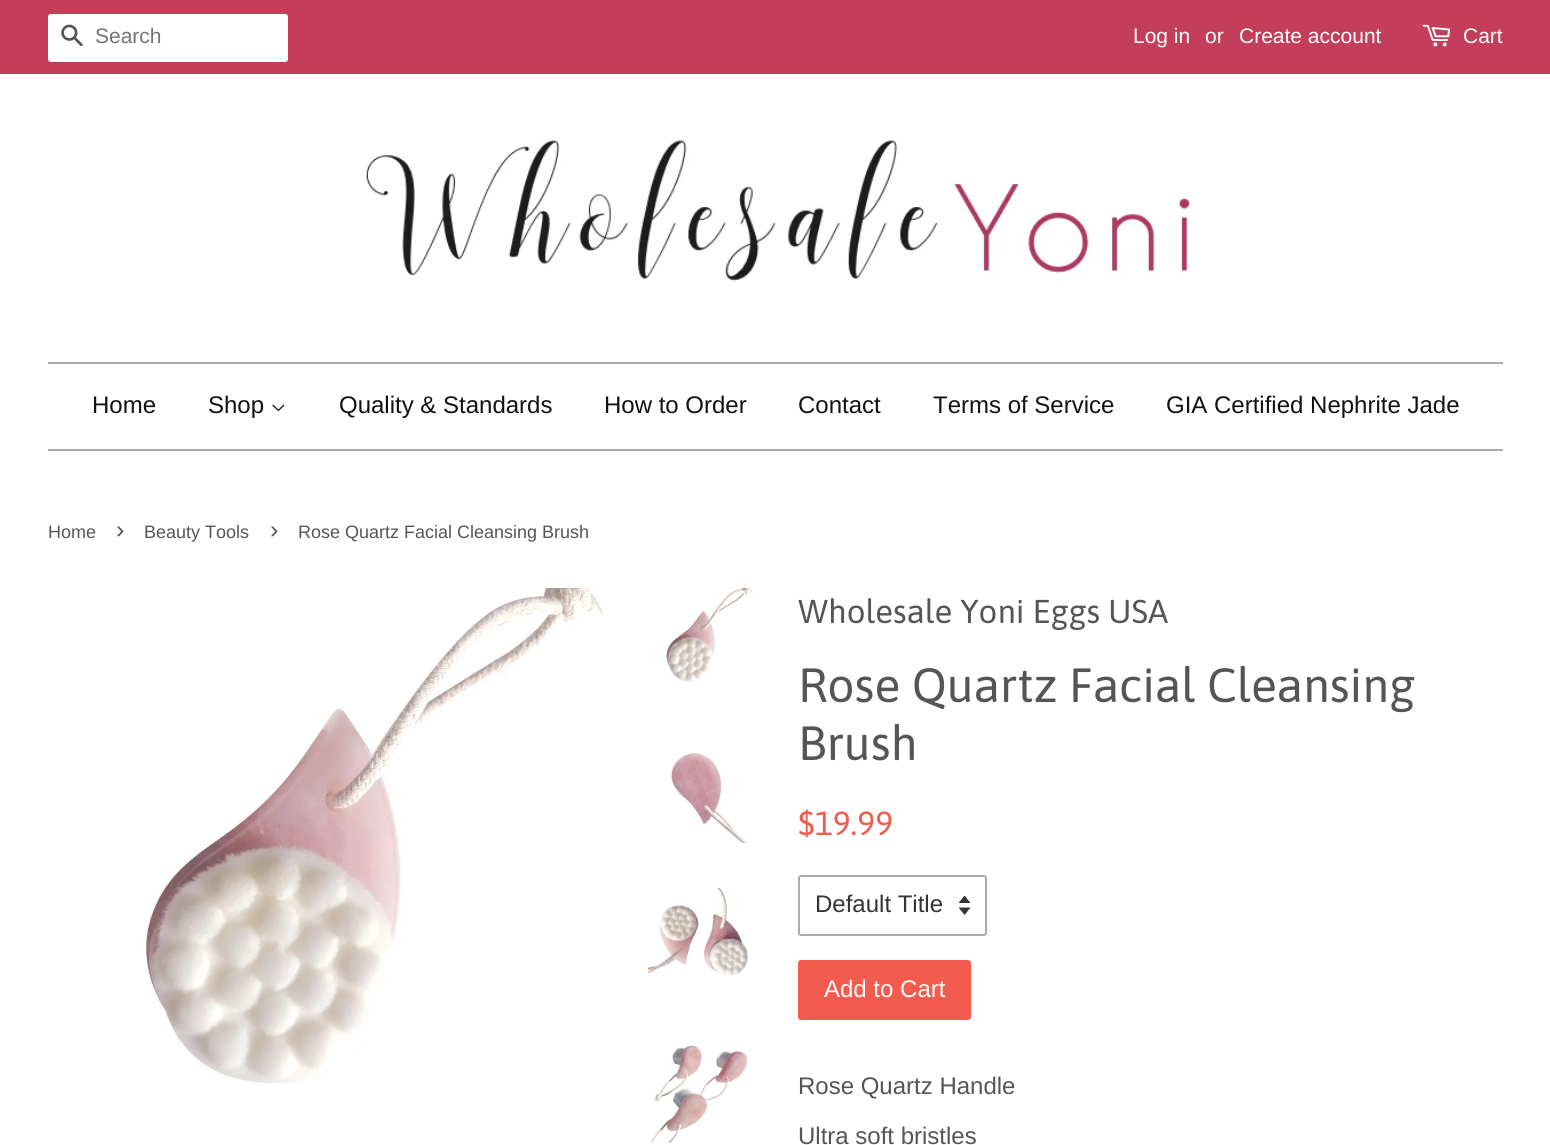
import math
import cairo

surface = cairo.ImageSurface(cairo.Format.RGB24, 1550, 1145)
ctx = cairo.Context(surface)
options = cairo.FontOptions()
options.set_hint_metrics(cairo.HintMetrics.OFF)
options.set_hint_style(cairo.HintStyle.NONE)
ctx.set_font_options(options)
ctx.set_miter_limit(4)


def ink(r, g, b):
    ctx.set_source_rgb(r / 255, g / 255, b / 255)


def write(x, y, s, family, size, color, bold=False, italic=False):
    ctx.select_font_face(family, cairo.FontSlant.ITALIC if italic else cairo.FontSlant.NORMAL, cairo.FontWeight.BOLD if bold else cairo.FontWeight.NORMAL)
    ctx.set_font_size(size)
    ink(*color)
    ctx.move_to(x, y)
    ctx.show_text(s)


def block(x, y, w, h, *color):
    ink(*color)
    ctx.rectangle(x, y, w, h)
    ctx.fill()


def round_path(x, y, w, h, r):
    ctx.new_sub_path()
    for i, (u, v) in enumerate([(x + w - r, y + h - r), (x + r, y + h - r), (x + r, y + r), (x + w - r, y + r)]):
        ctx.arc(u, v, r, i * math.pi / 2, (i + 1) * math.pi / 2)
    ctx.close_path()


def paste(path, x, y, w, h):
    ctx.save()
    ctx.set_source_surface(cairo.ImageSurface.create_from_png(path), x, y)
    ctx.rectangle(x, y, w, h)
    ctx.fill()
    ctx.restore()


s1 = dict(family="Liberation Sans", size=21, color=(117, 117, 117))
s2 = dict(family="Liberation Sans", size=21, color=(255, 255, 255))
s3 = dict(family="Liberation Sans", size=24, color=(17, 17, 17))
s4 = dict(family="Liberation Sans", size=18, color=(85, 85, 85))
s5 = dict(family="Liberation Sans", size=25, color=(85, 85, 85))
s6 = dict(family="Asap", size=33, color=(85, 85, 85))
s7 = dict(family="Asap", size=48, color=(85, 85, 85))
s8 = dict(family="Asap", size=33.5, color=(244, 91, 79))
s9 = dict(family="Liberation Sans", size=24, color=(51, 51, 51))
s10 = dict(family="Liberation Sans", size=24, color=(255, 255, 255))
s11 = dict(family="Liberation Sans", size=24, color=(85, 85, 85))

ink(255, 255, 255)
ctx.paint()
block(0, 0, 1550, 74, 197, 62, 89)
ink(255, 255, 255)
round_path(48, 14, 240, 48, 3)
ctx.fill()
paste("pic1.png", 61, 24, 22, 23)
write(95, 43, "Search", **s1)
write(1133, 43, "Log in", **s2)
write(1205, 43, "or", **s2)
write(1239, 43, "Create account", **s2)
paste("pic2.png", 1422, 24, 29, 23)
write(1463, 43, "Cart", **s2)
paste("pic3.png", 366, 137, 825, 145)
block(48, 362, 1455, 2, 170, 170, 170)
block(48, 449, 1455, 2, 170, 170, 170)
write(92, 413, "Home", **s3)
write(208, 413, "Shop", **s3)
paste("pic4.png", 272, 404, 13, 8)
write(339, 413, "Quality & Standards", **s3)
write(604, 413, "How to Order", **s3)
write(798, 413, "Contact", **s3)
write(933, 413, "Terms of Service", **s3)
write(1166, 413, "GIA Certified Nephrite Jade", **s3)
write(48, 538, "Home", **s4)
write(116, 538, "›", **s5)
write(144, 538, "Beauty Tools", **s4)
write(270, 538, "›", **s5)
write(298, 538, "Rose Quartz Facial Cleansing Brush", **s4)
paste("pic5.png", 144, 588, 459, 496)
paste("pic6.png", 666, 588, 87, 94)
paste("pic7.png", 671, 753, 79, 90)
paste("pic8.png", 648, 888, 100, 88)
paste("pic9.png", 650, 1045, 98, 98)
write(798, 623, "Wholesale Yoni Eggs USA", **s6)
write(798, 702, "Rose Quartz Facial Cleansing", **s7)
write(798, 760, "Brush", **s7)
write(798, 835, "$19.99", **s8)
paste("pic10.png", 959, 896, 12, 19)
round_path(799, 876, 187, 59, 2)
ink(170, 170, 170)
ctx.stroke()
write(815, 912, "Default Title", **s9)
ink(244, 91, 79)
round_path(798, 960, 173, 60, 3)
ctx.fill()
write(824, 997, "Add to Cart", **s10)
write(798, 1094, "Rose Quartz Handle", **s11)
write(798, 1144, "Ultra soft bristles", **s11)
surface.write_to_png("screenshot.png")
